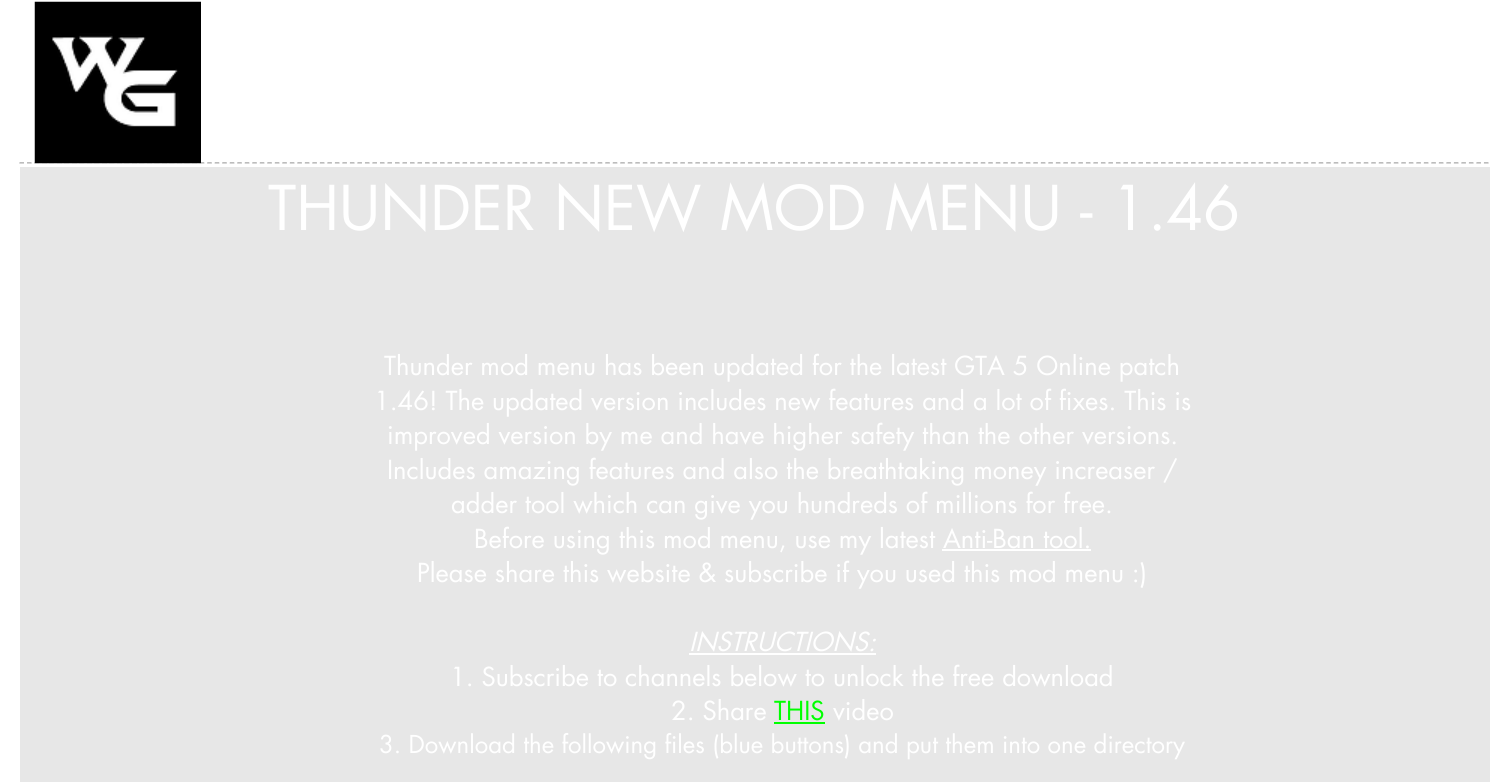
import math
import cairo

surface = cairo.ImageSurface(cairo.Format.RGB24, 1508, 782)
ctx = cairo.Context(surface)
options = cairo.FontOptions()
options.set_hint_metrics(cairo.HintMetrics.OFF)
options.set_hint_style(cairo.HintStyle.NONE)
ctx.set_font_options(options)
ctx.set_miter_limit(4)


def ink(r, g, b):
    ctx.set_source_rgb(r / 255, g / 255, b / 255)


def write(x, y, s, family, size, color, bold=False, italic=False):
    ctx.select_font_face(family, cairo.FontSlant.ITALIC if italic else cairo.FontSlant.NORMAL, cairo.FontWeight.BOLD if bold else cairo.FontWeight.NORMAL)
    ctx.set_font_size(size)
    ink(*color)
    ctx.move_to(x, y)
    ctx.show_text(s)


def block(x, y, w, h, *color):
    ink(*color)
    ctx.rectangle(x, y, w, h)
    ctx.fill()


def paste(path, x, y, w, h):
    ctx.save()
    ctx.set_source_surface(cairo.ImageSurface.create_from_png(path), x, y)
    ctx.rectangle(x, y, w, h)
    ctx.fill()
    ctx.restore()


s1 = dict(family="futura", size=60, color=(255, 255, 255))
s2 = dict(family="futura", size=25.5, color=(255, 255, 255))
s3 = dict(family="futura", size=25.5, color=(255, 255, 255), italic=True)
s4 = dict(family="futura", size=25.5, color=(0, 255, 0))
s5 = dict(family="futura", size=24, color=(255, 255, 255))

ink(255, 255, 255)
ctx.paint()
paste("pic1.png", 34, 1, 167, 163)
ctx.new_path()
ctx.move_to(19.5, 163)
ctx.line_to(1489.5, 163)
ctx.set_source_rgba(0, 0, 0, 0.35)
ctx.set_line_width(1.5)
ctx.set_dash([4.5, 3.01])
ctx.stroke()
ctx.new_path()
ctx.move_to(19.5, 164)
ctx.line_to(1489.5, 164)
ctx.set_source_rgba(1, 1, 1, 0.5)
ctx.stroke()
block(20, 167, 1470, 615, 231, 231, 231)
write(268, 230, "THUNDER NEW MOD MENU - 1.46", **s1)
write(384, 375, "Thunder mod menu has been updated for the latest GTA 5 Online patch", **s2)
write(374, 410, "1.46! The updated version includes new features and a lot of fixes. This is", **s2)
write(387, 444, "improved version by me and have higher safety than the other versions.", **s2)
write(387, 479, "Includes amazing features and also the breathtaking money increaser /", **s2)
write(451, 513, "adder tool which can give you hundreds of millions for free.", **s2)
write(474, 548, "Before using this mod menu, use my latest Anti-Ban tool.", **s2)
block(942, 549, 149, 2, 255, 255, 255)
write(417, 582, "Please share this website & subscribe if you used this mod menu :)", **s2)
write(689, 651, "INSTRUCTIONS:", **s3)
block(689, 653, 187, 2, 255, 255, 255)
write(450, 686, "1. Subscribe to channels below to unlock the free download", **s2)
write(671, 720, "2. Share", **s2)
write(774, 720, "THIS", **s4)
block(774, 722, 51, 2, 0, 255, 0)
write(833, 720, "video", **s2)
write(379, 753, "3. Download the following files (blue buttons) and put them into one directory", **s5)
surface.write_to_png("screenshot.png")
